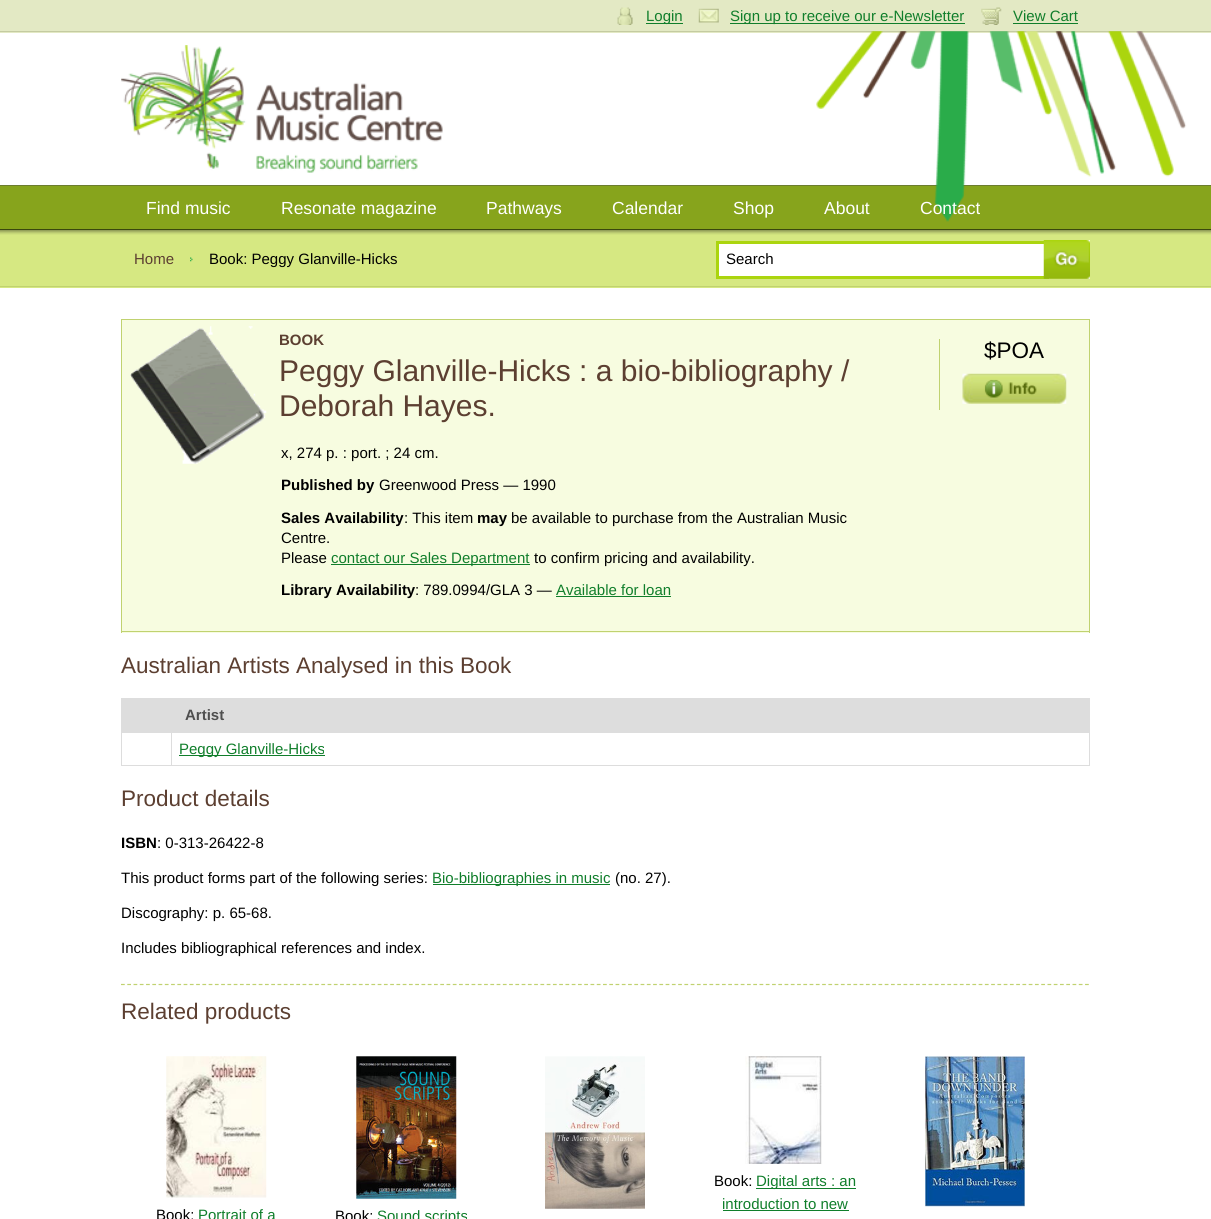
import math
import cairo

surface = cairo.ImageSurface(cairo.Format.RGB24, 1211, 1219)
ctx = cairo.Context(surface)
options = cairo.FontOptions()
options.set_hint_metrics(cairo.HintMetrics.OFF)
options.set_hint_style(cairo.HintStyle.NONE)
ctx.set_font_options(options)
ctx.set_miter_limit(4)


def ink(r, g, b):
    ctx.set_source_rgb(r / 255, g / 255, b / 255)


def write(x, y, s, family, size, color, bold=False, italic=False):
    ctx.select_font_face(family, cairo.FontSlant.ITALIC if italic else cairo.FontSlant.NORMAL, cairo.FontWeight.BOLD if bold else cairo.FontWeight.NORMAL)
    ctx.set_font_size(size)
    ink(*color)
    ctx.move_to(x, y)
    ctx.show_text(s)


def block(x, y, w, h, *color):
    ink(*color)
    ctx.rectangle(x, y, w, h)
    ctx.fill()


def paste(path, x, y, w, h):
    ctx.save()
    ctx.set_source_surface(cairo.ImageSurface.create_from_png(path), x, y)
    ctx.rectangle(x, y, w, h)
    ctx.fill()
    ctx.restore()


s1 = dict(family="Liberation Sans", size=15, color=(16, 126, 43))
s2 = dict(family="Liberation Sans", size=17.5, color=(255, 255, 255))
s3 = dict(family="Liberation Sans", size=15, color=(92, 63, 49))
s4 = dict(family="Liberation Sans", size=15, color=(0, 0, 0))
s5 = dict(family="Liberation Sans", size=15, color=(92, 63, 49), bold=True)
s6 = dict(family="Liberation Sans", size=30, color=(92, 63, 49))
s7 = dict(family="Liberation Sans", size=15, color=(0, 0, 0), bold=True)
s8 = dict(family="Liberation Sans", size=22.5, color=(0, 0, 0))
s9 = dict(family="Liberation Sans", size=22.5, color=(92, 63, 49))
s10 = dict(family="Liberation Sans", size=15, color=(79, 79, 79), bold=True)

ink(227, 233, 196)
ctx.paint()
block(0, 31, 1211, 1, 196, 203, 161)
paste("pic1.png", 617, 7, 16, 18)
block(646, 23, 37, 1, 16, 126, 43)
write(646, 21, "Login", **s1)
paste("pic2.png", 698, 8, 21, 15)
block(730, 23, 235, 1, 16, 126, 43)
write(730, 21, "Sign up to receive our e-Newsletter", **s1)
paste("pic3.png", 981, 7, 21, 18)
write(1013, 21, "View Cart", **s1)
block(1013, 23, 65, 1, 16, 126, 43)
block(0, 33, 1211, 152, 255, 255, 255)
block(0, 186, 1211, 43, 135, 164, 28)
block(0, 185, 1211, 1, 108, 124, 47)
paste("pic4.png", 816, 31, 371, 191)
paste("pic5.png", 121, 45, 322, 128)
block(0, 229, 1211, 1, 58, 71, 14)
write(146, 214, "Find music", **s2)
write(281, 214, "Resonate magazine", **s2)
write(486, 214, "Pathways", **s2)
write(612, 214, "Calendar", **s2)
write(733, 214, "Shop", **s2)
write(824, 214, "About", **s2)
write(920, 214, "Contact", **s2)
block(0, 235, 1211, 53, 214, 232, 130)
paste("pic6.png", 0, 230, 1211, 5)
block(0, 286, 1211, 1, 192, 210, 112)
write(134, 264, "Home", **s3)
paste("pic7.png", 190, 257, 3, 5)
write(209, 264, "Book: Peggy Glanville-Hicks", **s4)
block(719, 244, 325, 32, 255, 255, 255)
ctx.rectangle(717.5, 242.5, 330, 35)
ink(171, 213, 14)
ctx.set_line_width(3)
ctx.stroke()
write(726, 264, "Search", **s4)
paste("pic8.png", 1043, 240, 47, 39)
block(0, 288, 1211, 931, 255, 255, 255)
block(122, 320, 967, 313, 247, 252, 224)
block(121, 319, 969, 1, 192, 210, 112)
block(1089, 319, 1, 314, 192, 210, 112)
block(121, 631, 969, 1, 192, 210, 112)
block(121, 319, 1, 314, 192, 210, 112)
paste("pic9.png", 130, 326, 137, 138)
write(279, 345, "BOOK", **s5)
write(279, 381, "Peggy Glanville-Hicks : a bio-bibliography /", **s6)
write(279, 416, "Deborah Hayes.", **s6)
write(281, 458, "x, 274 p. : port. ; 24 cm.", **s4)
write(281, 490, "Published by", **s7)
write(379, 490, "Greenwood Press — 1990", **s4)
write(281, 523, "Sales Availability", **s7)
write(404, 523, ": This item", **s4)
write(477, 523, "may", **s7)
write(511, 523, "be available to purchase from the Australian Music", **s4)
write(281, 543, "Centre.", **s4)
write(281, 563, "Please", **s4)
block(331, 564, 199, 1, 16, 126, 43)
write(331, 563, "contact our Sales Department", **s1)
write(534, 563, "to confirm pricing and availability.", **s4)
write(281, 595, "Library Availability", **s7)
write(415, 595, ": 789.0994/GLA 3 —", **s4)
write(556, 595, "Available for loan", **s1)
block(556, 596, 115, 1, 16, 126, 43)
block(939, 339, 1, 71, 192, 210, 112)
write(984, 358, "$POA", **s8)
paste("pic10.png", 962, 373, 105, 31)
write(121, 673, "Australian Artists Analysed in this Book", **s9)
block(121, 698, 969, 35, 221, 221, 221)
write(185, 720, "Artist", **s10)
block(1089, 731, 1, 35, 221, 221, 221)
block(171, 765, 919, 1, 221, 221, 221)
block(171, 731, 1, 35, 221, 221, 221)
block(121, 765, 52, 1, 221, 221, 221)
block(121, 731, 1, 35, 221, 221, 221)
block(179, 755, 146, 1, 16, 126, 43)
write(179, 754, "Peggy Glanville-Hicks", **s1)
ctx.new_path()
ctx.move_to(121, 984.5)
ctx.line_to(1090, 984.5)
ink(192, 210, 112)
ctx.set_line_width(1.2)
ctx.set_dash([3.75, 2.51])
ctx.stroke()
write(121, 806, "Product details", **s9)
write(121, 848, "ISBN", **s7)
write(157, 848, ": 0-313-26422-8", **s4)
write(121, 883, "This product forms part of the following series:", **s4)
block(433, 884, 177, 1, 16, 126, 43)
write(432, 883, "Bio-bibliographies in music", **s1)
write(615, 883, "(no. 27).", **s4)
write(121, 918, "Discography: p. 65-68.", **s4)
write(121, 953, "Includes bibliographical references and index.", **s4)
write(121, 1019, "Related products", **s9)
paste("pic11.png", 545, 1056, 100, 153)
paste("pic12.png", 745, 1056, 77, 108)
write(714, 1186, "Book:", **s4)
block(756, 1188, 100, 1, 16, 126, 43)
write(756, 1186, "Digital arts : an", **s1)
write(722, 1209, "introduction to new", **s1)
block(723, 1210, 126, 1, 16, 126, 43)
paste("pic13.png", 925, 1056, 100, 151)
paste("pic14.png", 166, 1056, 101, 142)
write(156, 1220, "Book:", **s4)
write(198, 1220, "Portrait of a", **s1)
paste("pic15.png", 356, 1056, 101, 143)
write(335, 1221, "Book:", **s4)
write(377, 1221, "Sound scripts", **s1)
surface.write_to_png("screenshot.png")
